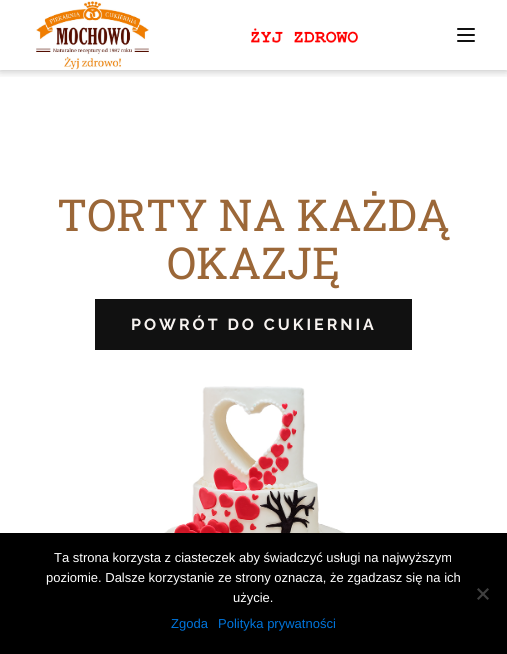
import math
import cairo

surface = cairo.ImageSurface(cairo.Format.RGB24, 507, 654)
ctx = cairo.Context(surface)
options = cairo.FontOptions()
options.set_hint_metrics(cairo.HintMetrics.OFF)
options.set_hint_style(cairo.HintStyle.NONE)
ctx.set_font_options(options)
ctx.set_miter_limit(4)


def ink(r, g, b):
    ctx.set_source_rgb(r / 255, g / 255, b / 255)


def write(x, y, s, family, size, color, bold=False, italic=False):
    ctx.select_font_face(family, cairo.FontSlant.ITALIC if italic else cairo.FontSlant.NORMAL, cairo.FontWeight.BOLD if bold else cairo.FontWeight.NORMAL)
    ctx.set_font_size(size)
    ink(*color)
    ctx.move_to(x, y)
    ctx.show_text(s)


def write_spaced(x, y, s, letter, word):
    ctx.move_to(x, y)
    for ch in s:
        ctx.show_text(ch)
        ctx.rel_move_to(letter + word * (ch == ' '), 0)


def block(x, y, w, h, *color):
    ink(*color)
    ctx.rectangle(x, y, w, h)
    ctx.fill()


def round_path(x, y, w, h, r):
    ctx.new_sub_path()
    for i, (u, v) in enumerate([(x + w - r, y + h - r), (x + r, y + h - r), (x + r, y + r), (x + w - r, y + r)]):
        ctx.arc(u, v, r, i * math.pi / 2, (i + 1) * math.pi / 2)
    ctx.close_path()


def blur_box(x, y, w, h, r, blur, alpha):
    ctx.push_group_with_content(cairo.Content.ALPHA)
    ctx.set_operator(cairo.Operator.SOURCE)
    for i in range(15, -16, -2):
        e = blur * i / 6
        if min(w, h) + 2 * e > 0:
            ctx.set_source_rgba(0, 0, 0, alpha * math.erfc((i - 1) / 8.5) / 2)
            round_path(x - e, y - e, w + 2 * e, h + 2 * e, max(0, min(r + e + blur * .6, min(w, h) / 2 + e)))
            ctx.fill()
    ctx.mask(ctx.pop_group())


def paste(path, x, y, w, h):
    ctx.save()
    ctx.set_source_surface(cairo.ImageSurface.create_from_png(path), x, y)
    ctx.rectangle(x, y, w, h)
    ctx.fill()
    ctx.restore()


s1 = dict(family="Roboto Slab", size=44, color=(155, 103, 56))
s2 = dict(family="Liberation Sans", size=13, color=(255, 255, 255))
s3 = dict(family="Liberation Sans", size=13, color=(0, 116, 219))

ink(255, 255, 255)
ctx.paint()
ctx.save()
ctx.rectangle(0, 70, 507, 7)
ctx.clip()
ink(0, 0, 0)
blur_box(0, 0, 507, 70, 0, 5, 0.3)
ctx.restore()
paste("pic1.png", 36, 1, 113, 69)
paste("pic2.png", 251, 28, 107, 15)
ink(17, 17, 17)
round_path(457, 28, 18, 2, 1)
ctx.fill()
round_path(457, 34, 18, 2, 1)
ctx.fill()
round_path(457, 40, 18, 2, 1)
ctx.fill()
write(57, 231, "TORTY NA KAŻDĄ", **s1)
write(167, 279, "OKAZJĘ", **s1)
block(95, 299, 317, 51, 17, 17, 17)
ctx.select_font_face("Raleway", cairo.FontSlant.NORMAL, cairo.FontWeight.BOLD)
ctx.set_font_size(16)
ink(247, 243, 240)
write_spaced(131, 330, "POWRÓT DO CUKIERNIA", 3, 0)
paste("pic3.png", 129, 386, 255, 147)
block(0, 533, 507, 121, 0, 0, 0)
write(54, 562, "Ta strona korzysta z ciasteczek aby świadczyć usługi na najwyższym", **s2)
write(46, 582, "poziomie. Dalsze korzystanie ze strony oznacza, że zgadzasz się na ich", **s2)
write(233, 602, "użycie.", **s2)
ink(64, 64, 64)
ctx.new_path()
ctx.move_to(487.5, 588)
ctx.line_to(489, 589.5)
ctx.line_to(478.5, 600)
ctx.line_to(477, 598.5)
ctx.close_path()
ctx.fill()
ctx.new_path()
ctx.move_to(477, 589.5)
ctx.line_to(478.5, 588)
ctx.line_to(489, 598.5)
ctx.line_to(487.5, 600)
ctx.close_path()
ctx.fill()
write(171, 628, "Zgoda", **s3)
write(218, 628, "Polityka prywatności", **s3)
surface.write_to_png("screenshot.png")
